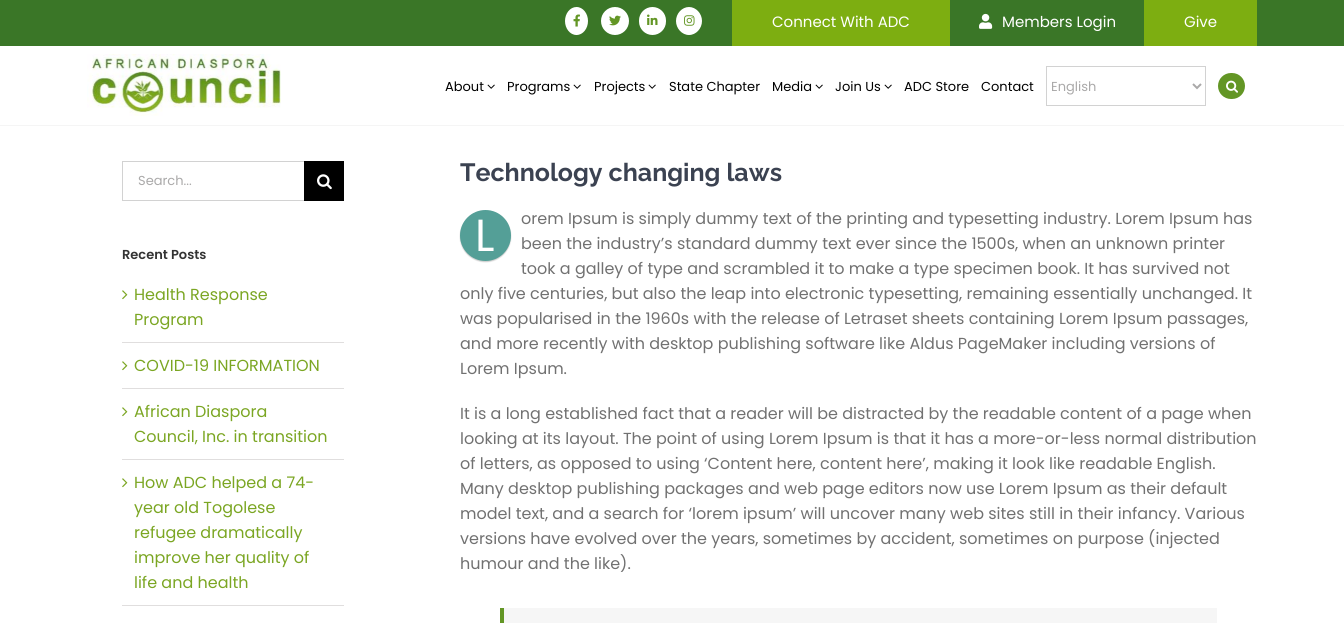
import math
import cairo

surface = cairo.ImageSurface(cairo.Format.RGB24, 1344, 623)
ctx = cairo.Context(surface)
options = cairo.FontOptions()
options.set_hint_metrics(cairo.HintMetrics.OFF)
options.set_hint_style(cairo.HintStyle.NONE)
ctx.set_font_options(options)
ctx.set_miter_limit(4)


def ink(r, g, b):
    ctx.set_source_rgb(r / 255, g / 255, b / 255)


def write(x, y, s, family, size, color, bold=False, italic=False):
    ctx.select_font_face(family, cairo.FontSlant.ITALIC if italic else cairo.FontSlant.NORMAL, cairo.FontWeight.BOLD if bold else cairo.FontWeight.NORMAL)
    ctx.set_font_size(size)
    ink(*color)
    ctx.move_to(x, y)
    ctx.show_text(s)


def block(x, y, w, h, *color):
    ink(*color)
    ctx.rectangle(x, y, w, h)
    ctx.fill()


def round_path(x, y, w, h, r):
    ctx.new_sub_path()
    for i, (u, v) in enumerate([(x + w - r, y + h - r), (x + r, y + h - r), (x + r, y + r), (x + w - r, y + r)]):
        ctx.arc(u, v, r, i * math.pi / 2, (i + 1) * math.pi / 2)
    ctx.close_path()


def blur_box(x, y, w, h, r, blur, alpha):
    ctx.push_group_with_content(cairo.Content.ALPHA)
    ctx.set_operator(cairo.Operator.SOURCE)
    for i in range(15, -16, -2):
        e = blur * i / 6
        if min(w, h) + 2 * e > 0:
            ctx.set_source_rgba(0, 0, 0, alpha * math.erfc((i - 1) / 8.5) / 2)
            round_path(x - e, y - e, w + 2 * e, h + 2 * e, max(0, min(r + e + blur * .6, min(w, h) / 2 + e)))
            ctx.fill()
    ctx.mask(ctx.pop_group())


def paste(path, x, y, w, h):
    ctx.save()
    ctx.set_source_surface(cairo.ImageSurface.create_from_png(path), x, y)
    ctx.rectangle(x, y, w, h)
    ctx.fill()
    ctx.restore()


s1 = dict(family="Poppins", size=15, color=(255, 255, 255))
s2 = dict(family="Poppins", size=13, color=(0, 0, 0))
s3 = dict(family="Poppins", size=13, color=(170, 169, 169))
s4 = dict(family="Poppins SemiBold", size=13, color=(51, 51, 51))
s5 = dict(family="Poppins", size=16, color=(123, 166, 35))
s6 = dict(family="Raleway Thin", size=25, color=(59, 66, 81))
s7 = dict(family="Poppins", size=45, color=(255, 255, 255))
s8 = dict(family="Poppins", size=16, color=(113, 113, 113))

ink(255, 255, 255)
ctx.paint()
block(0, 0, 1344, 46, 58, 118, 39)
ink(255, 255, 255)
ctx.new_path()
ctx.move_to(576.5, 7)
ctx.curve_to(583, 7, 588, 13.5, 588, 21)
ctx.curve_to(588, 28.5, 583, 35, 576.5, 35)
ctx.curve_to(570, 35, 565, 28.5, 565, 21)
ctx.curve_to(565, 13.5, 570, 7, 576.5, 7)
ctx.close_path()
ctx.fill()
paste("pic1.png", 573, 14, 7, 13)
ctx.arc(615, 21, 14, 0, 2 * math.pi)
ctx.fill()
paste("pic2.png", 609, 15, 12, 11)
round_path(639, 7, 27, 28, 13.5)
ctx.fill()
paste("pic3.png", 647, 14, 11, 11)
ctx.new_path()
ctx.move_to(689, 7)
ctx.curve_to(696, 7, 702, 13.5, 702, 21)
ctx.curve_to(702, 28.5, 696, 35, 689, 35)
ctx.curve_to(682, 35, 676, 28.5, 676, 21)
ctx.curve_to(676, 13.5, 682, 7, 689, 7)
ctx.close_path()
ctx.fill()
paste("pic4.png", 684, 15, 11, 11)
block(732, 0, 218, 46, 125, 174, 17)
write(772, 27, "Connect With ADC", **s1)
paste("pic5.png", 979, 13, 14, 16)
write(1002, 27, "Members Login", **s1)
block(1144, 0, 113, 46, 125, 174, 17)
write(1184, 27, "Give", **s1)
block(0, 125, 1344, 1, 245, 245, 245)
paste("pic6.png", 87, 54, 194, 62)
write(445, 91, "About", **s2)
paste("pic7.png", 487, 84, 8, 5)
write(507, 91, "Programs", **s2)
paste("pic7.png", 573, 84, 8, 5)
write(594, 91, "Projects", **s2)
paste("pic7.png", 648, 84, 8, 5)
write(669, 91, "State Chapter", **s2)
write(772, 91, "Media", **s2)
paste("pic7.png", 815, 84, 8, 5)
write(835, 91, "Join Us", **s2)
paste("pic7.png", 884, 84, 8, 5)
write(904, 91, "ADC Store", **s2)
write(981, 91, "Contact", **s2)
ctx.rectangle(1046.5, 66.5, 159, 39)
ink(210, 210, 210)
ctx.set_line_width(1)
ctx.stroke()
ctx.new_path()
ctx.move_to(1193, 84)
ctx.line_to(1197, 88)
ctx.line_to(1201, 84)
ink(170, 169, 169)
ctx.set_line_width(2)
ctx.stroke()
write(1051, 91, "English", **s3)
ink(99, 150, 37)
round_path(1218, 73, 27, 26, 13)
ctx.fill()
paste("pic8.png", 1226, 80, 12, 13)
block(122, 161, 182, 1, 210, 210, 210)
block(122, 200, 182, 1, 210, 210, 210)
block(122, 161, 1, 40, 210, 210, 210)
write(138, 185, "Search...", **s3)
block(304, 161, 40, 40, 0, 0, 0)
paste("pic9.png", 317, 174, 15, 16)
write(122, 259, "Recent Posts", **s4)
block(122, 342, 222, 1, 224, 222, 222)
paste("pic10.png", 122, 290, 6, 10)
write(134, 300, "Health Response", **s5)
write(134, 325, "Program", **s5)
block(122, 388, 222, 1, 224, 222, 222)
paste("pic10.png", 122, 361, 6, 10)
write(134, 371, "COVID-19 INFORMATION", **s5)
block(122, 459, 222, 1, 224, 222, 222)
paste("pic10.png", 122, 407, 6, 10)
write(134, 417, "African Diaspora", **s5)
write(134, 442, "Council, Inc. in transition", **s5)
block(122, 605, 222, 1, 224, 222, 222)
paste("pic10.png", 122, 478, 6, 10)
write(134, 488, "How ADC helped a 74-", **s5)
write(134, 513, "year old Togolese", **s5)
write(134, 538, "refugee dramatically", **s5)
write(134, 563, "improve her quality of", **s5)
write(134, 588, "life and health", **s5)
write(460, 181, "Technology changing laws", **s6)
ink(0, 0, 0)
blur_box(460, 211, 51, 51, 25.5, 0.5, 0.2)
ink(84, 159, 151)
ctx.arc(485.5, 235.5, 25.5, 0, 2 * math.pi)
ctx.fill()
write(475, 251, "L", **s7)
write(521, 224, "orem Ipsum is simply dummy text of the printing and typesetting industry. Lorem Ipsum has", **s8)
write(521, 249, "been the industry’s standard dummy text ever since the 1500s, when an unknown printer", **s8)
write(521, 274, "took a galley of type and scrambled it to make a type specimen book. It has survived not", **s8)
write(460, 299, "only five centuries, but also the leap into electronic typesetting, remaining essentially unchanged. It", **s8)
write(460, 324, "was popularised in the 1960s with the release of Letraset sheets containing Lorem Ipsum passages,", **s8)
write(460, 349, "and more recently with desktop publishing software like Aldus PageMaker including versions of", **s8)
write(460, 374, "Lorem Ipsum.", **s8)
write(460, 419, "It is a long established fact that a reader will be distracted by the readable content of a page when", **s8)
write(460, 444, "looking at its layout. The point of using Lorem Ipsum is that it has a more-or-less normal distribution", **s8)
write(460, 469, "of letters, as opposed to using ‘Content here, content here’, making it look like readable English.", **s8)
write(460, 494, "Many desktop publishing packages and web page editors now use Lorem Ipsum as their default", **s8)
write(460, 519, "model text, and a search for ‘lorem ipsum’ will uncover many web sites still in their infancy. Various", **s8)
write(460, 544, "versions have evolved over the years, sometimes by accident, sometimes on purpose (injected", **s8)
write(460, 569, "humour and the like).", **s8)
block(504, 608, 713, 15, 246, 246, 246)
block(500, 608, 4, 15, 99, 150, 37)
surface.write_to_png("screenshot.png")
